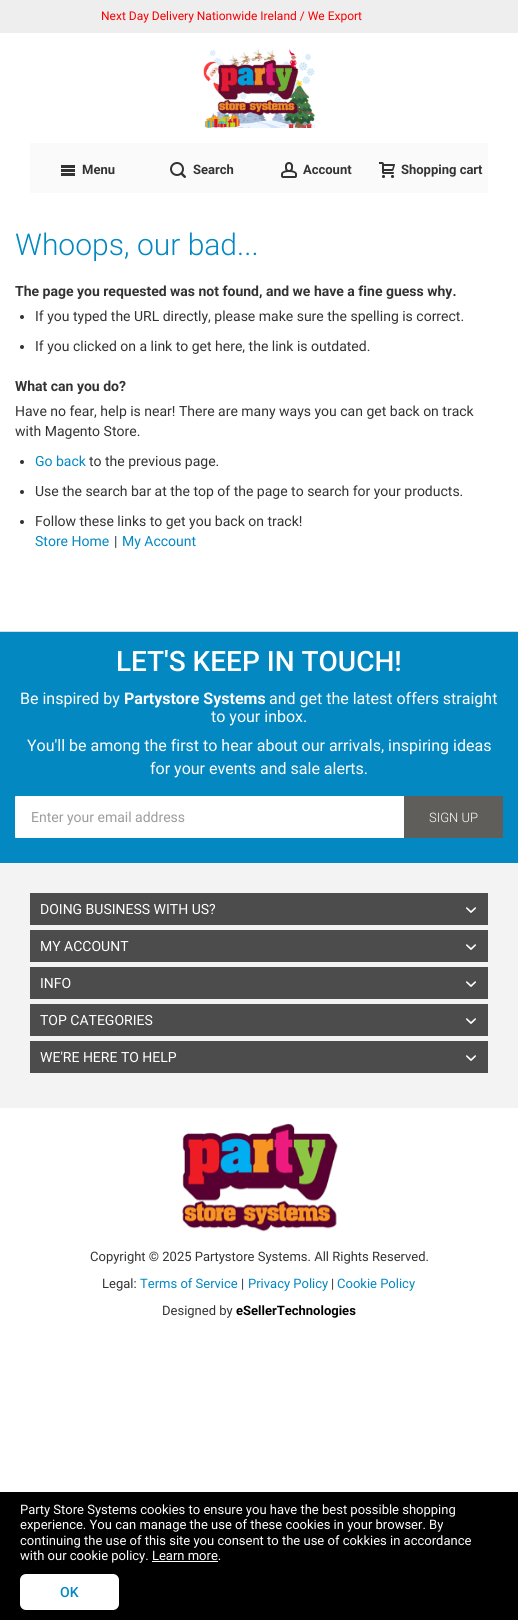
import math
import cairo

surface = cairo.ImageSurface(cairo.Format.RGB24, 518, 1620)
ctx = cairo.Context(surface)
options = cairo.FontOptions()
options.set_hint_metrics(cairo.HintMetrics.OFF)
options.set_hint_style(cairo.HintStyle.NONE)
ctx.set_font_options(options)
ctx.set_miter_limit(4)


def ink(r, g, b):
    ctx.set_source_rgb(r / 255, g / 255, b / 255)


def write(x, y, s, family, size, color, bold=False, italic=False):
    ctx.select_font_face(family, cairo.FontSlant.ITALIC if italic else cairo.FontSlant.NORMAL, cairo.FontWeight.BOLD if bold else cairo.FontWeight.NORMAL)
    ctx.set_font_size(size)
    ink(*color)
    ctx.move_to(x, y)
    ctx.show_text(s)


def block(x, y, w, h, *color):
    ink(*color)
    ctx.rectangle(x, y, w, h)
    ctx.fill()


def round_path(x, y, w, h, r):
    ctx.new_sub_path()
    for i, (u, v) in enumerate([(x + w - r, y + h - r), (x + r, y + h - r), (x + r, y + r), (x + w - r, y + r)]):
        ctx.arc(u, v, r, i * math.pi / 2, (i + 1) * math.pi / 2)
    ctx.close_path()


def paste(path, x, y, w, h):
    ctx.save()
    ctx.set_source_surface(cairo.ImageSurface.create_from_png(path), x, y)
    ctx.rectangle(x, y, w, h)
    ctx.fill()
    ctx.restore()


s1 = dict(family="Roboto", size=12, color=(249, 0, 0))
s2 = dict(family="Roboto", size=13, color=(51, 51, 51), bold=True)
s3 = dict(family="Roboto Light", size=30, color=(3, 136, 193))
s4 = dict(family="Roboto", size=14, color=(51, 51, 51), bold=True)
s5 = dict(family="Roboto", size=14, color=(51, 51, 51))
s6 = dict(family="Roboto", size=14, color=(3, 136, 193))
s7 = dict(family="Roboto Medium", size=28, color=(255, 255, 255))
s8 = dict(family="Roboto", size=16, color=(255, 255, 255))
s9 = dict(family="Roboto", size=16, color=(255, 255, 255), bold=True)
s10 = dict(family="Roboto", size=14, color=(156, 156, 156))
s11 = dict(family="Roboto Light", size=13, color=(255, 255, 255))
s12 = dict(family="Roboto", size=14, color=(255, 255, 255))
s13 = dict(family="Roboto", size=13, color=(51, 51, 51))
s14 = dict(family="Roboto", size=13, color=(3, 136, 193))
s15 = dict(family="Roboto", size=13, color=(0, 0, 0), bold=True)
s16 = dict(family="Roboto", size=13, color=(255, 255, 255))
s17 = dict(family="Roboto Medium", size=14, color=(3, 136, 193))

ink(255, 255, 255)
ctx.paint()
block(0, 0, 518, 33, 238, 238, 238)
write(101, 20, "Next Day Delivery Nationwide Ireland / We Export", **s1)
paste("pic1.png", 203, 48, 112, 80)
block(30, 143, 458, 50, 250, 250, 250)
paste("pic2.png", 61, 165, 14, 11)
write(82, 174, "Menu", **s2)
paste("pic3.png", 170, 162, 16, 16)
write(193, 174, "Search", **s2)
paste("pic4.png", 281, 162, 16, 16)
write(303, 174, "Account", **s2)
paste("pic5.png", 379, 162, 16, 16)
write(401, 174, "Shopping cart", **s2)
write(15, 255, "Whoops, our bad...", **s3)
write(15, 296, "The page you requested was not found, and we have a fine guess why.", **s4)
ctx.new_path()
ctx.arc(22, 317, 2, 0, 2 * math.pi)
ctx.fill()
write(35, 321, "If you typed the URL directly, please make sure the spelling is correct.", **s5)
ctx.new_path()
ctx.arc(22, 347, 2, 0, 2 * math.pi)
ctx.fill()
write(35, 351, "If you clicked on a link to get here, the link is outdated.", **s5)
write(15, 391, "What can you do?", **s4)
write(15, 416, "Have no fear, help is near! There are many ways you can get back on track", **s5)
write(15, 436, "with Magento Store.", **s5)
ctx.new_path()
ctx.arc(22, 462, 2, 0, 2 * math.pi)
ctx.fill()
write(35, 466, "Go back", **s6)
write(89, 466, "to the previous page.", **s5)
ctx.new_path()
ctx.arc(22, 492, 2, 0, 2 * math.pi)
ctx.fill()
write(35, 496, "Use the search bar at the top of the page to search for your products.", **s5)
ctx.new_path()
ctx.arc(22, 522, 2, 0, 2 * math.pi)
ctx.fill()
write(35, 526, "Follow these links to get you back on track!", **s5)
write(35, 546, "Store Home", **s6)
write(114, 546, "|", **s5)
write(122, 546, "My Account", **s6)
block(0, 632, 518, 231, 3, 136, 193)
block(0, 631, 518, 1, 221, 221, 221)
write(116, 671, "LET'S KEEP IN TOUCH!", **s7)
write(20, 704, "Be inspired by", **s8)
write(124, 704, "Partystore Systems", **s9)
write(269, 704, "and get the latest offers straight", **s8)
write(211, 722, "to your inbox.", **s8)
write(27, 751, "You'll be among the first to hear about our arrivals, inspiring ideas", **s8)
write(150, 774, "for your events and sale alerts.", **s8)
round_path(15, 796, 488, 42, 1)
ctx.fill()
write(31, 822, "Enter your email address", **s10)
block(404, 796, 99, 42, 95, 94, 91)
write(429, 822, "SIGN UP", **s11)
block(0, 863, 518, 245, 243, 243, 243)
block(30, 893, 458, 32, 76, 76, 76)
write(40, 914, "DOING BUSINESS WITH US?", **s12)
paste("pic6.png", 466, 907, 10, 6)
block(30, 930, 458, 32, 76, 76, 76)
write(40, 951, "MY ACCOUNT", **s12)
paste("pic6.png", 466, 944, 10, 6)
block(30, 967, 458, 32, 76, 76, 76)
write(40, 988, "INFO", **s12)
paste("pic6.png", 466, 981, 10, 6)
block(30, 1004, 458, 32, 76, 76, 76)
write(40, 1025, "TOP CATEGORIES", **s12)
paste("pic6.png", 466, 1018, 10, 6)
block(30, 1041, 458, 32, 76, 76, 76)
write(40, 1062, "WE'RE HERE TO HELP", **s12)
paste("pic6.png", 466, 1055, 10, 6)
paste("pic7.png", 182, 1123, 156, 109)
write(90, 1261, "Copyright © 2025 Partystore Systems. All Rights Reserved.", **s13)
write(102, 1288, "Legal:", **s13)
write(140, 1288, "Terms of Service", **s14)
write(241, 1288, "|", **s13)
write(248, 1288, "Privacy Policy", **s14)
write(331, 1288, "|", **s13)
write(337, 1288, "Cookie Policy", **s14)
write(162, 1315, "Designed by", **s13)
write(236, 1315, "eSellerTechnologies", **s15)
block(0, 1492, 518, 128, 0, 0, 0)
write(20, 1514, "Party Store Systems cookies to ensure you have the best possible shopping", **s16)
write(20, 1529, "experience. You can manage the use of these cookies in your browser. By", **s16)
write(20, 1545, "continuing the use of this site you consent to the use of cokkies in accordance", **s16)
write(20, 1560, "with our cookie policy. Learn more.", **s16)
block(152, 1561, 66, 1, 255, 255, 255)
round_path(20, 1574, 99, 36, 6)
ctx.fill()
write(60, 1597, "OK", **s17)
surface.write_to_png("screenshot.png")
